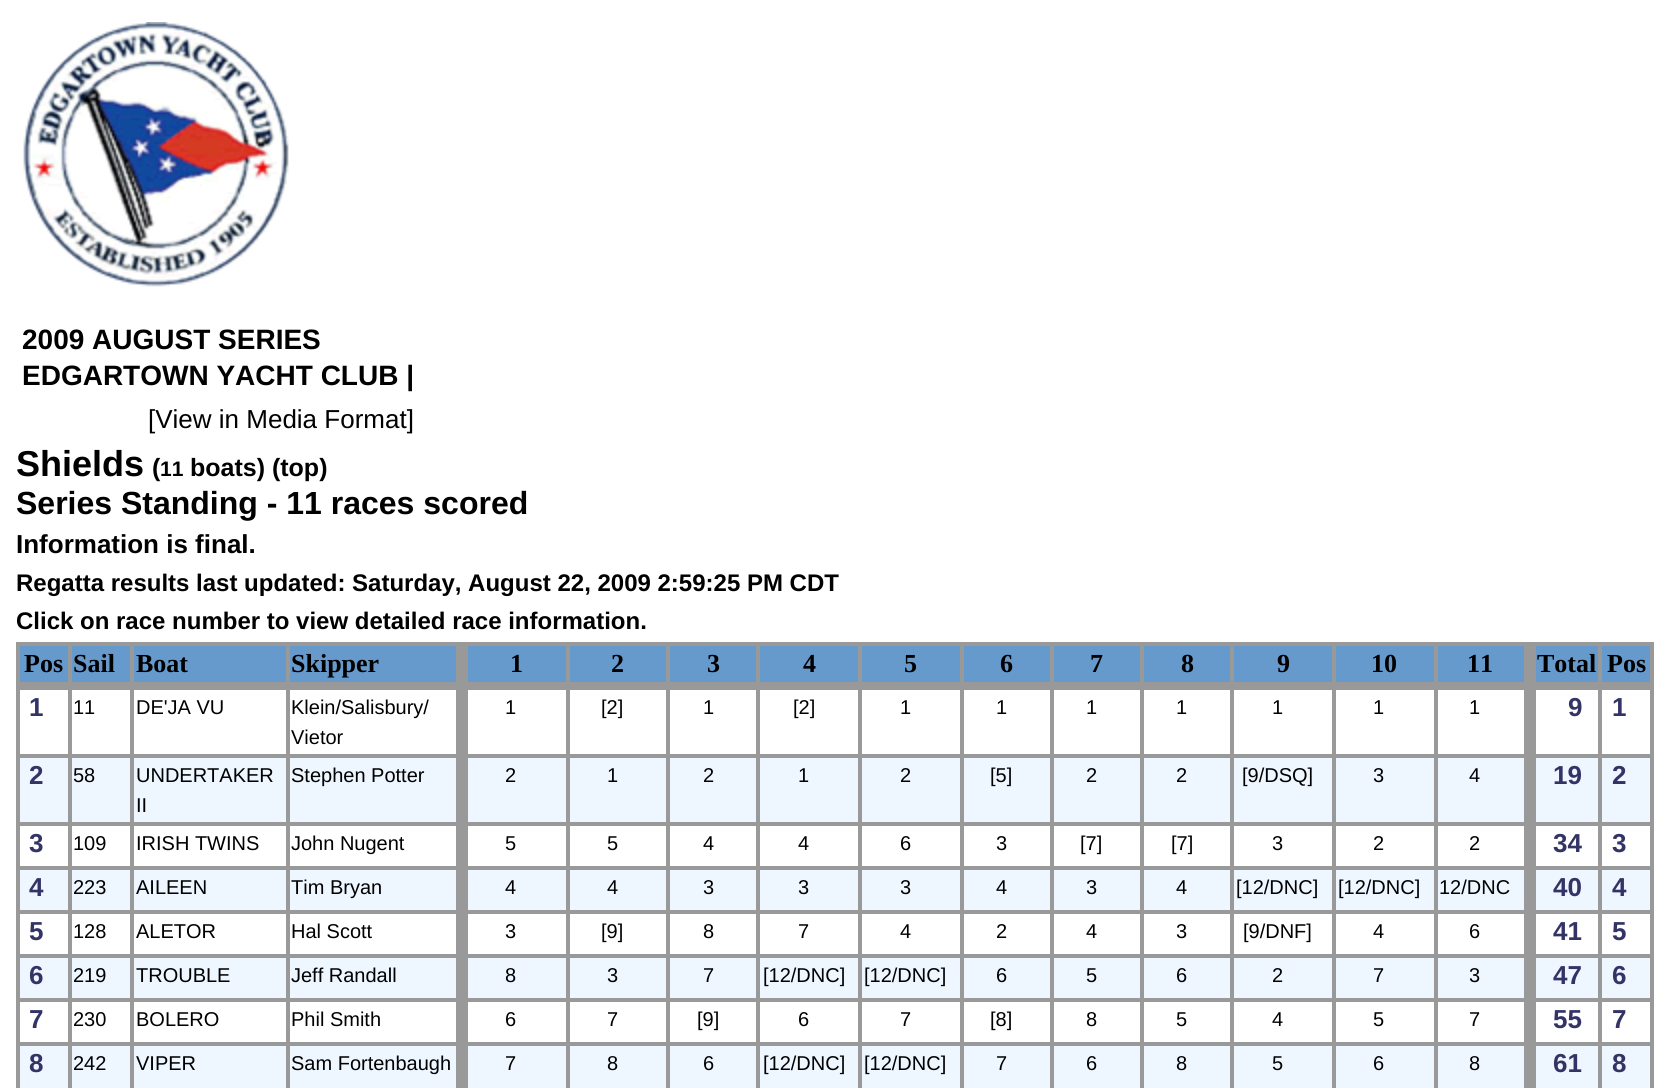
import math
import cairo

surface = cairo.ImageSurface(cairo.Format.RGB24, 1669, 1088)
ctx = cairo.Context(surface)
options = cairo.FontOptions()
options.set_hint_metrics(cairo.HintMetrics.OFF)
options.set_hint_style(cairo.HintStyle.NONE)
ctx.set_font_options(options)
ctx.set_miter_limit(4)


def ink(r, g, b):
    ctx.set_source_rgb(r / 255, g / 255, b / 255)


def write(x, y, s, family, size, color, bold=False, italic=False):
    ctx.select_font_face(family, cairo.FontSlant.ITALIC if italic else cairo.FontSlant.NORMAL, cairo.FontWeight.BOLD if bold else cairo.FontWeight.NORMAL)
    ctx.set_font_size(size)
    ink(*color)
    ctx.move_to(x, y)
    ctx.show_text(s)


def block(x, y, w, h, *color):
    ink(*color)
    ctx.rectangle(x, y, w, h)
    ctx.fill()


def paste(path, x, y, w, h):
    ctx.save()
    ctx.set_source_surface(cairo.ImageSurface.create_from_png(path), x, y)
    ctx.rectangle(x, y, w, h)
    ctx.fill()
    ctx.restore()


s1 = dict(family="Liberation Sans", size=28, color=(0, 0, 0), bold=True)
s2 = dict(family="Liberation Sans", size=26, color=(0, 0, 0))
s3 = dict(family="Liberation Sans", size=36, color=(0, 0, 0), bold=True)
s4 = dict(family="Liberation Sans", size=25, color=(0, 0, 0), bold=True)
s5 = dict(family="Liberation Sans", size=21, color=(0, 0, 0), bold=True)
s6 = dict(family="Liberation Sans", size=32, color=(0, 0, 0), bold=True)
s7 = dict(family="Liberation Sans", size=26, color=(0, 0, 0), bold=True)
s8 = dict(family="Liberation Sans", size=24, color=(0, 0, 0), bold=True)
s9 = dict(family="Liberation Serif", size=26, color=(0, 0, 0), bold=True)
s10 = dict(family="Liberation Sans", size=26, color=(51, 51, 102), bold=True)
s11 = dict(family="Liberation Sans", size=20, color=(0, 0, 0))

ink(255, 255, 255)
ctx.paint()
paste("pic1.png", 23, 22, 266, 265)
write(22, 349, "2009 AUGUST SERIES", **s1)
write(22, 385, "EDGARTOWN YACHT CLUB |", **s1)
write(148, 428, "[View in Media Format]", **s2)
write(16, 476, "Shields", **s3)
write(152, 476, "(", **s4)
write(160, 476, "11", **s5)
write(190, 476, "boats) (top)", **s4)
write(16, 514, "Series Standing - 11 races scored", **s6)
write(16, 553, "Information is final.", **s7)
write(16, 591, "Regatta results last updated: Saturday, August 22, 2009 2:59:25 PM CDT", **s8)
write(16, 629, "Click on race number to view detailed race information.", **s8)
block(16, 642, 1638, 446, 153, 153, 153)
block(20, 646, 48, 36, 102, 153, 204)
write(24, 672, "Pos", **s9)
block(72, 646, 58, 36, 102, 153, 204)
write(73, 672, "Sail", **s9)
block(134, 646, 152, 36, 102, 153, 204)
write(136, 672, "Boat", **s9)
block(290, 646, 166, 36, 102, 153, 204)
write(291, 672, "Skipper", **s9)
block(468, 646, 98, 36, 102, 153, 204)
write(510, 672, "1", **s9)
block(570, 646, 96, 36, 102, 153, 204)
write(611, 672, "2", **s9)
block(670, 646, 86, 36, 102, 153, 204)
write(707, 672, "3", **s9)
block(760, 646, 98, 36, 102, 153, 204)
write(803, 672, "4", **s9)
block(862, 646, 98, 36, 102, 153, 204)
write(904, 672, "5", **s9)
block(964, 646, 86, 36, 102, 153, 204)
write(1000, 672, "6", **s9)
block(1054, 646, 86, 36, 102, 153, 204)
write(1090, 672, "7", **s9)
block(1144, 646, 86, 36, 102, 153, 204)
write(1181, 672, "8", **s9)
block(1234, 646, 98, 36, 102, 153, 204)
write(1277, 672, "9", **s9)
block(1336, 646, 98, 36, 102, 153, 204)
write(1371, 672, "10", **s9)
block(1438, 646, 86, 36, 102, 153, 204)
write(1467, 672, "11", **s9)
block(1536, 646, 62, 36, 102, 153, 204)
write(1537, 672, "Total", **s9)
block(1602, 646, 48, 36, 102, 153, 204)
write(1607, 672, "Pos", **s9)
block(20, 690, 48, 64, 255, 255, 255)
write(29, 716, "1", **s10)
block(72, 690, 58, 64, 255, 255, 255)
write(73, 714, "11", **s11)
block(134, 690, 152, 64, 255, 255, 255)
write(136, 714, "DE'JA VU", **s11)
block(290, 690, 166, 64, 255, 255, 255)
write(291, 714, "Klein/Salisbury/", **s11)
write(291, 744, "Vietor", **s11)
block(468, 690, 98, 64, 255, 255, 255)
write(505, 714, "1", **s11)
block(570, 690, 96, 64, 255, 255, 255)
write(601, 714, "[2]", **s11)
block(670, 690, 86, 64, 255, 255, 255)
write(703, 714, "1", **s11)
block(760, 690, 98, 64, 255, 255, 255)
write(793, 714, "[2]", **s11)
block(862, 690, 98, 64, 255, 255, 255)
write(900, 714, "1", **s11)
block(964, 690, 86, 64, 255, 255, 255)
write(996, 714, "1", **s11)
block(1054, 690, 86, 64, 255, 255, 255)
write(1086, 714, "1", **s11)
block(1144, 690, 86, 64, 255, 255, 255)
write(1176, 714, "1", **s11)
block(1234, 690, 98, 64, 255, 255, 255)
write(1272, 714, "1", **s11)
block(1336, 690, 98, 64, 255, 255, 255)
write(1373, 714, "1", **s11)
block(1438, 690, 86, 64, 255, 255, 255)
write(1469, 714, "1", **s11)
block(1536, 690, 62, 64, 255, 255, 255)
write(1568, 716, "9", **s10)
block(1602, 690, 48, 64, 255, 255, 255)
write(1612, 716, "1", **s10)
block(20, 758, 48, 64, 238, 246, 255)
write(29, 784, "2", **s10)
block(72, 758, 58, 64, 238, 246, 255)
write(73, 782, "58", **s11)
block(134, 758, 152, 64, 238, 246, 255)
write(136, 782, "UNDERTAKER", **s11)
write(136, 812, "II", **s11)
block(290, 758, 166, 64, 238, 246, 255)
write(291, 782, "Stephen Potter", **s11)
block(468, 758, 98, 64, 238, 246, 255)
write(505, 782, "2", **s11)
block(570, 758, 96, 64, 238, 246, 255)
write(607, 782, "1", **s11)
block(670, 758, 86, 64, 238, 246, 255)
write(703, 782, "2", **s11)
block(760, 758, 98, 64, 238, 246, 255)
write(798, 782, "1", **s11)
block(862, 758, 98, 64, 238, 246, 255)
write(900, 782, "2", **s11)
block(964, 758, 86, 64, 238, 246, 255)
write(990, 782, "[5]", **s11)
block(1054, 758, 86, 64, 238, 246, 255)
write(1086, 782, "2", **s11)
block(1144, 758, 86, 64, 238, 246, 255)
write(1176, 782, "2", **s11)
block(1234, 758, 98, 64, 238, 246, 255)
write(1242, 782, "[9/DSQ]", **s11)
block(1336, 758, 98, 64, 238, 246, 255)
write(1373, 782, "3", **s11)
block(1438, 758, 86, 64, 238, 246, 255)
write(1469, 782, "4", **s11)
block(1536, 758, 62, 64, 238, 246, 255)
write(1553, 784, "19", **s10)
block(1602, 758, 48, 64, 238, 246, 255)
write(1612, 784, "2", **s10)
block(20, 826, 48, 40, 255, 255, 255)
write(29, 852, "3", **s10)
block(72, 826, 58, 40, 255, 255, 255)
write(73, 850, "109", **s11)
block(134, 826, 152, 40, 255, 255, 255)
write(136, 850, "IRISH TWINS", **s11)
block(290, 826, 166, 40, 255, 255, 255)
write(291, 850, "John Nugent", **s11)
block(468, 826, 98, 40, 255, 255, 255)
write(505, 850, "5", **s11)
block(570, 826, 96, 40, 255, 255, 255)
write(607, 850, "5", **s11)
block(670, 826, 86, 40, 255, 255, 255)
write(703, 850, "4", **s11)
block(760, 826, 98, 40, 255, 255, 255)
write(798, 850, "4", **s11)
block(862, 826, 98, 40, 255, 255, 255)
write(900, 850, "6", **s11)
block(964, 826, 86, 40, 255, 255, 255)
write(996, 850, "3", **s11)
block(1054, 826, 86, 40, 255, 255, 255)
write(1080, 850, "[7]", **s11)
block(1144, 826, 86, 40, 255, 255, 255)
write(1171, 850, "[7]", **s11)
block(1234, 826, 98, 40, 255, 255, 255)
write(1272, 850, "3", **s11)
block(1336, 826, 98, 40, 255, 255, 255)
write(1373, 850, "2", **s11)
block(1438, 826, 86, 40, 255, 255, 255)
write(1469, 850, "2", **s11)
block(1536, 826, 62, 40, 255, 255, 255)
write(1553, 852, "34", **s10)
block(1602, 826, 48, 40, 255, 255, 255)
write(1612, 852, "3", **s10)
block(20, 870, 48, 40, 238, 246, 255)
write(29, 896, "4", **s10)
block(72, 870, 58, 40, 238, 246, 255)
write(73, 894, "223", **s11)
block(134, 870, 152, 40, 238, 246, 255)
write(136, 894, "AILEEN", **s11)
block(290, 870, 166, 40, 238, 246, 255)
write(291, 894, "Tim Bryan", **s11)
block(468, 870, 98, 40, 238, 246, 255)
write(505, 894, "4", **s11)
block(570, 870, 96, 40, 238, 246, 255)
write(607, 894, "4", **s11)
block(670, 870, 86, 40, 238, 246, 255)
write(703, 894, "3", **s11)
block(760, 870, 98, 40, 238, 246, 255)
write(798, 894, "3", **s11)
block(862, 870, 98, 40, 238, 246, 255)
write(900, 894, "3", **s11)
block(964, 870, 86, 40, 238, 246, 255)
write(996, 894, "4", **s11)
block(1054, 870, 86, 40, 238, 246, 255)
write(1086, 894, "3", **s11)
block(1144, 870, 86, 40, 238, 246, 255)
write(1176, 894, "4", **s11)
block(1234, 870, 98, 40, 238, 246, 255)
write(1236, 894, "[12/DNC]", **s11)
block(1336, 870, 98, 40, 238, 246, 255)
write(1338, 894, "[12/DNC]", **s11)
block(1438, 870, 86, 40, 238, 246, 255)
write(1439, 894, "12/DNC", **s11)
block(1536, 870, 62, 40, 238, 246, 255)
write(1553, 896, "40", **s10)
block(1602, 870, 48, 40, 238, 246, 255)
write(1612, 896, "4", **s10)
block(20, 914, 48, 40, 255, 255, 255)
write(29, 940, "5", **s10)
block(72, 914, 58, 40, 255, 255, 255)
write(73, 938, "128", **s11)
block(134, 914, 152, 40, 255, 255, 255)
write(136, 938, "ALETOR", **s11)
block(290, 914, 166, 40, 255, 255, 255)
write(291, 938, "Hal Scott", **s11)
block(468, 914, 98, 40, 255, 255, 255)
write(505, 938, "3", **s11)
block(570, 914, 96, 40, 255, 255, 255)
write(601, 938, "[9]", **s11)
block(670, 914, 86, 40, 255, 255, 255)
write(703, 938, "8", **s11)
block(760, 914, 98, 40, 255, 255, 255)
write(798, 938, "7", **s11)
block(862, 914, 98, 40, 255, 255, 255)
write(900, 938, "4", **s11)
block(964, 914, 86, 40, 255, 255, 255)
write(996, 938, "2", **s11)
block(1054, 914, 86, 40, 255, 255, 255)
write(1086, 938, "4", **s11)
block(1144, 914, 86, 40, 255, 255, 255)
write(1176, 938, "3", **s11)
block(1234, 914, 98, 40, 255, 255, 255)
write(1243, 938, "[9/DNF]", **s11)
block(1336, 914, 98, 40, 255, 255, 255)
write(1373, 938, "4", **s11)
block(1438, 914, 86, 40, 255, 255, 255)
write(1469, 938, "6", **s11)
block(1536, 914, 62, 40, 255, 255, 255)
write(1553, 940, "41", **s10)
block(1602, 914, 48, 40, 255, 255, 255)
write(1612, 940, "5", **s10)
block(20, 958, 48, 40, 238, 246, 255)
write(29, 984, "6", **s10)
block(72, 958, 58, 40, 238, 246, 255)
write(73, 982, "219", **s11)
block(134, 958, 152, 40, 238, 246, 255)
write(136, 982, "TROUBLE", **s11)
block(290, 958, 166, 40, 238, 246, 255)
write(291, 982, "Jeff Randall", **s11)
block(468, 958, 98, 40, 238, 246, 255)
write(505, 982, "8", **s11)
block(570, 958, 96, 40, 238, 246, 255)
write(607, 982, "3", **s11)
block(670, 958, 86, 40, 238, 246, 255)
write(703, 982, "7", **s11)
block(760, 958, 98, 40, 238, 246, 255)
write(763, 982, "[12/DNC]", **s11)
block(862, 958, 98, 40, 238, 246, 255)
write(864, 982, "[12/DNC]", **s11)
block(964, 958, 86, 40, 238, 246, 255)
write(996, 982, "6", **s11)
block(1054, 958, 86, 40, 238, 246, 255)
write(1086, 982, "5", **s11)
block(1144, 958, 86, 40, 238, 246, 255)
write(1176, 982, "6", **s11)
block(1234, 958, 98, 40, 238, 246, 255)
write(1272, 982, "2", **s11)
block(1336, 958, 98, 40, 238, 246, 255)
write(1373, 982, "7", **s11)
block(1438, 958, 86, 40, 238, 246, 255)
write(1469, 982, "3", **s11)
block(1536, 958, 62, 40, 238, 246, 255)
write(1553, 984, "47", **s10)
block(1602, 958, 48, 40, 238, 246, 255)
write(1612, 984, "6", **s10)
block(20, 1002, 48, 40, 255, 255, 255)
write(29, 1028, "7", **s10)
block(72, 1002, 58, 40, 255, 255, 255)
write(73, 1026, "230", **s11)
block(134, 1002, 152, 40, 255, 255, 255)
write(136, 1026, "BOLERO", **s11)
block(290, 1002, 166, 40, 255, 255, 255)
write(291, 1026, "Phil Smith", **s11)
block(468, 1002, 98, 40, 255, 255, 255)
write(505, 1026, "6", **s11)
block(570, 1002, 96, 40, 255, 255, 255)
write(607, 1026, "7", **s11)
block(670, 1002, 86, 40, 255, 255, 255)
write(697, 1026, "[9]", **s11)
block(760, 1002, 98, 40, 255, 255, 255)
write(798, 1026, "6", **s11)
block(862, 1002, 98, 40, 255, 255, 255)
write(900, 1026, "7", **s11)
block(964, 1002, 86, 40, 255, 255, 255)
write(990, 1026, "[8]", **s11)
block(1054, 1002, 86, 40, 255, 255, 255)
write(1086, 1026, "8", **s11)
block(1144, 1002, 86, 40, 255, 255, 255)
write(1176, 1026, "5", **s11)
block(1234, 1002, 98, 40, 255, 255, 255)
write(1272, 1026, "4", **s11)
block(1336, 1002, 98, 40, 255, 255, 255)
write(1373, 1026, "5", **s11)
block(1438, 1002, 86, 40, 255, 255, 255)
write(1469, 1026, "7", **s11)
block(1536, 1002, 62, 40, 255, 255, 255)
write(1553, 1028, "55", **s10)
block(1602, 1002, 48, 40, 255, 255, 255)
write(1612, 1028, "7", **s10)
block(20, 1046, 48, 42, 238, 246, 255)
write(29, 1072, "8", **s10)
block(72, 1046, 58, 42, 238, 246, 255)
write(73, 1070, "242", **s11)
block(134, 1046, 152, 42, 238, 246, 255)
write(136, 1070, "VIPER", **s11)
block(290, 1046, 166, 42, 238, 246, 255)
write(291, 1070, "Sam Fortenbaugh", **s11)
block(468, 1046, 98, 42, 238, 246, 255)
write(505, 1070, "7", **s11)
block(570, 1046, 96, 42, 238, 246, 255)
write(607, 1070, "8", **s11)
block(670, 1046, 86, 42, 238, 246, 255)
write(703, 1070, "6", **s11)
block(760, 1046, 98, 42, 238, 246, 255)
write(763, 1070, "[12/DNC]", **s11)
block(862, 1046, 98, 42, 238, 246, 255)
write(864, 1070, "[12/DNC]", **s11)
block(964, 1046, 86, 42, 238, 246, 255)
write(996, 1070, "7", **s11)
block(1054, 1046, 86, 42, 238, 246, 255)
write(1086, 1070, "6", **s11)
block(1144, 1046, 86, 42, 238, 246, 255)
write(1176, 1070, "8", **s11)
block(1234, 1046, 98, 42, 238, 246, 255)
write(1272, 1070, "5", **s11)
block(1336, 1046, 98, 42, 238, 246, 255)
write(1373, 1070, "6", **s11)
block(1438, 1046, 86, 42, 238, 246, 255)
write(1469, 1070, "8", **s11)
block(1536, 1046, 62, 42, 238, 246, 255)
write(1553, 1072, "61", **s10)
block(1602, 1046, 48, 42, 238, 246, 255)
write(1612, 1072, "8", **s10)
surface.write_to_png("screenshot.png")
